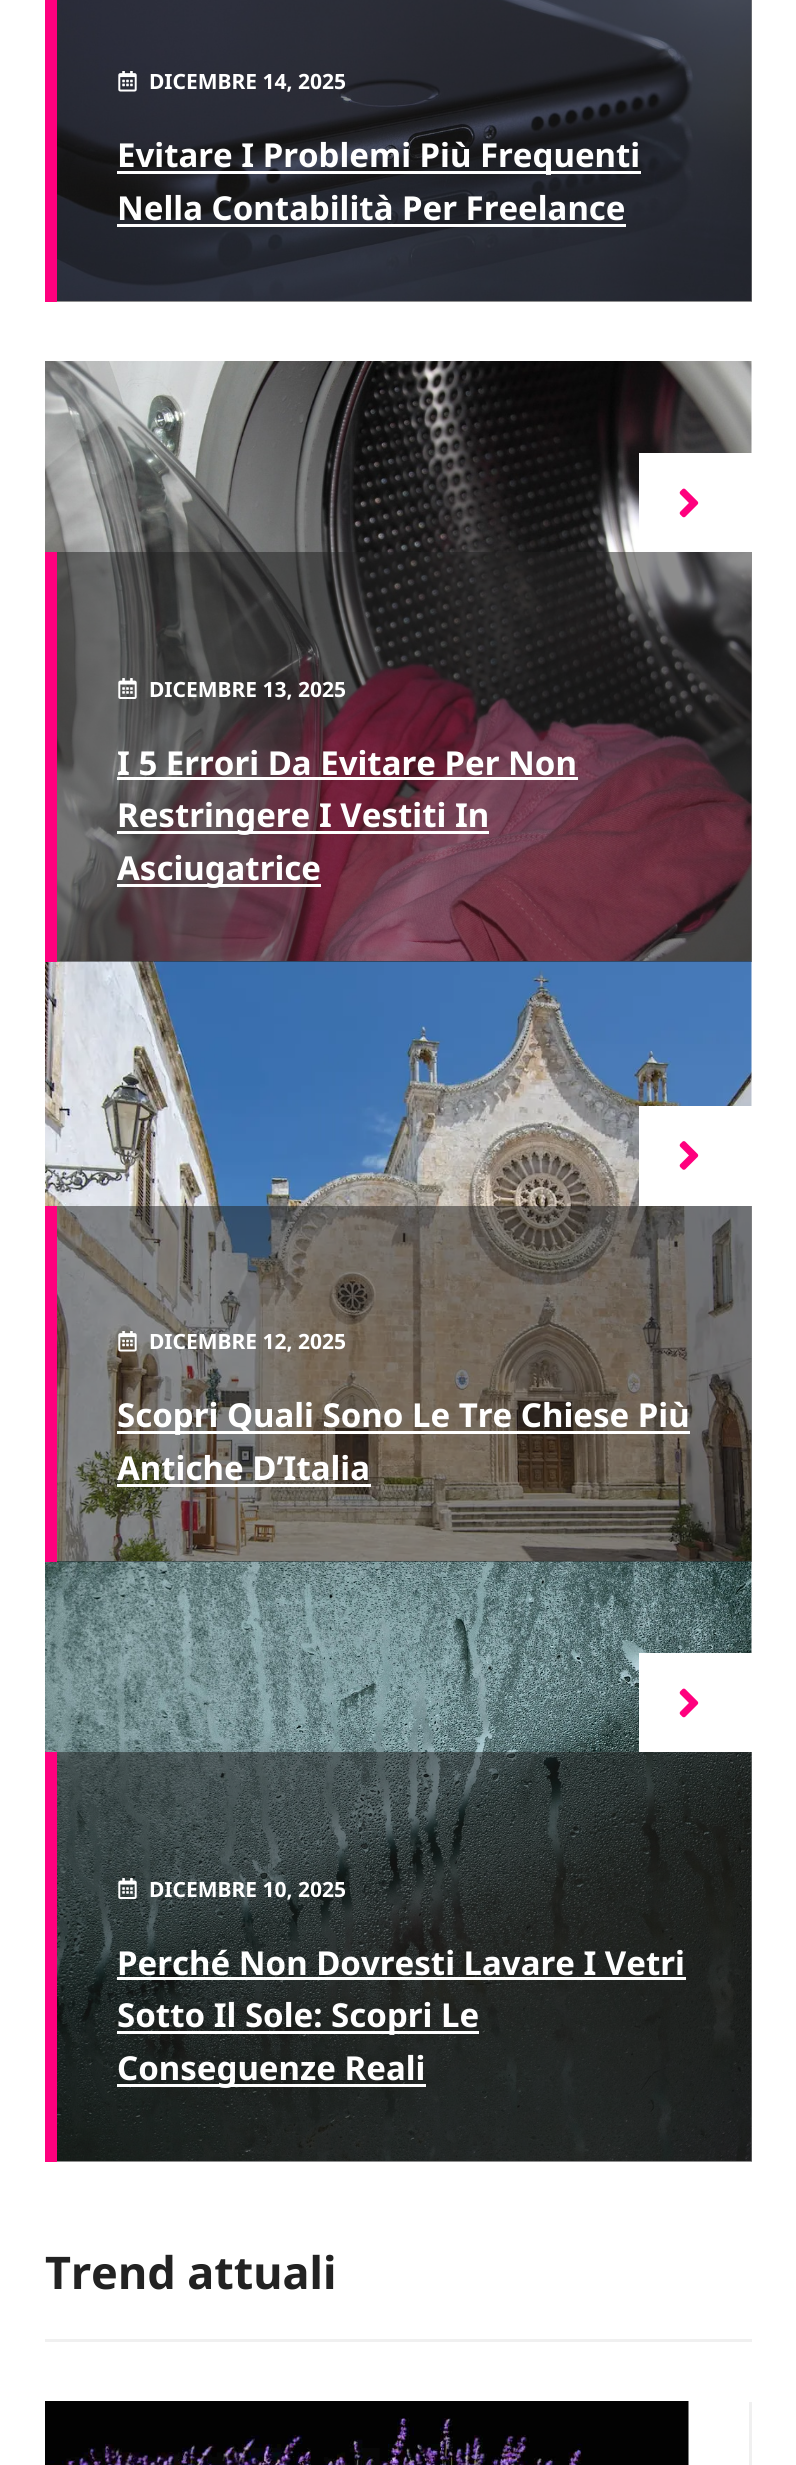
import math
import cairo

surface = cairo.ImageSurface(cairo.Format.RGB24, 796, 2465)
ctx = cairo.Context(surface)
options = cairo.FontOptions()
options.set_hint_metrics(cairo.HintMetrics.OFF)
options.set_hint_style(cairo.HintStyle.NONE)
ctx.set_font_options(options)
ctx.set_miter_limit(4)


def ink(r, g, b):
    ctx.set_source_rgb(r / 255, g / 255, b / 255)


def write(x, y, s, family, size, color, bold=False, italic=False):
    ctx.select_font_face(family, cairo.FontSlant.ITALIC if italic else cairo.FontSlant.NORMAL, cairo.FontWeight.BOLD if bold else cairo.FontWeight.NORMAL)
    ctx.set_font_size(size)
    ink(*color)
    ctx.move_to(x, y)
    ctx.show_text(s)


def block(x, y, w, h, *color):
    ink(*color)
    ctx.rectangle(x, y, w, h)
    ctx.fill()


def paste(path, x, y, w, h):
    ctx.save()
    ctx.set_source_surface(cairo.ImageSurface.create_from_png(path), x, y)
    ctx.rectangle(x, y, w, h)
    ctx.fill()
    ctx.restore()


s1 = dict(family="Noto Sans", size=21, color=(255, 255, 255), bold=True)
s2 = dict(family="Noto Sans", size=33, color=(255, 255, 255), bold=True)
s3 = dict(family="Noto Sans", size=45, color=(34, 34, 34), bold=True)

ink(255, 255, 255)
ctx.paint()
block(57, 0, 695, 302, 142, 142, 142)
paste("pic1.png", 57, 0, 695, 301)
block(45, 0, 12, 302, 255, 0, 126)
paste("pic2.png", 118, 71, 19, 21)
write(149, 89, "DICEMBRE 14, 2025", **s1)
block(117, 171, 524, 3, 255, 255, 255)
write(117, 167, "Evitare I Problemi Più Frequenti", **s2)
write(117, 220, "Nella Contabilità Per Freelance", **s2)
block(117, 224, 509, 3, 255, 255, 255)
paste("pic3.png", 45, 361, 707, 600)
block(639, 453, 113, 99, 255, 255, 255)
paste("pic4.png", 679, 488, 20, 30)
paste("pic6.png", 45, 961, 707, 600)
ctx.set_source_rgba(0.129, 0.129, 0.129, 0.51)
ctx.rectangle(57, 552, 695, 410)
ctx.fill()
block(45, 552, 12, 410, 255, 0, 126)
paste("pic5.png", 118, 678, 19, 21)
write(149, 697, "DICEMBRE 13, 2025", **s1)
write(117, 775, "I 5 Errori Da Evitare Per Non", **s2)
block(117, 777, 461, 3, 255, 255, 255)
block(117, 831, 372, 3, 255, 255, 255)
write(117, 827, "Restringere I Vestiti In", **s2)
block(117, 884, 204, 3, 255, 255, 255)
write(117, 880, "Asciugatrice", **s2)
block(639, 1106, 113, 100, 255, 255, 255)
paste("pic7.png", 679, 1141, 20, 29)
paste("pic9.png", 45, 1561, 707, 600)
ctx.set_source_rgba(0.129, 0.129, 0.129, 0.51)
ctx.rectangle(57, 1206, 695, 356)
ctx.fill()
block(45, 1206, 12, 356, 255, 0, 126)
paste("pic8.png", 118, 1331, 19, 21)
write(149, 1349, "DICEMBRE 12, 2025", **s1)
block(117, 1431, 573, 3, 255, 255, 255)
write(117, 1427, "Scopri Quali Sono Le Tre Chiese Più", **s2)
write(117, 1480, "Antiche D’Italia", **s2)
block(117, 1484, 254, 3, 255, 255, 255)
block(639, 1653, 113, 99, 255, 255, 255)
paste("pic4.png", 679, 1688, 20, 30)
ctx.set_source_rgba(0.129, 0.129, 0.129, 0.51)
ctx.rectangle(57, 1752, 695, 410)
ctx.fill()
block(45, 1752, 12, 410, 255, 0, 126)
paste("pic10.png", 118, 1878, 19, 21)
write(149, 1897, "DICEMBRE 10, 2025", **s1)
write(117, 1975, "Perché Non Dovresti Lavare I Vetri", **s2)
block(117, 1977, 569, 3, 255, 255, 255)
block(117, 2031, 362, 3, 255, 255, 255)
write(117, 2027, "Sotto Il Sole: Scopri Le", **s2)
block(117, 2084, 309, 3, 255, 255, 255)
write(117, 2080, "Conseguenze Reali", **s2)
block(45, 2339, 707, 3, 240, 240, 240)
write(45, 2289, "Trend attuali", **s3)
block(749, 2402, 3, 63, 240, 240, 240)
paste("pic11.png", 45, 2401, 644, 64)
surface.write_to_png("screenshot.png")
